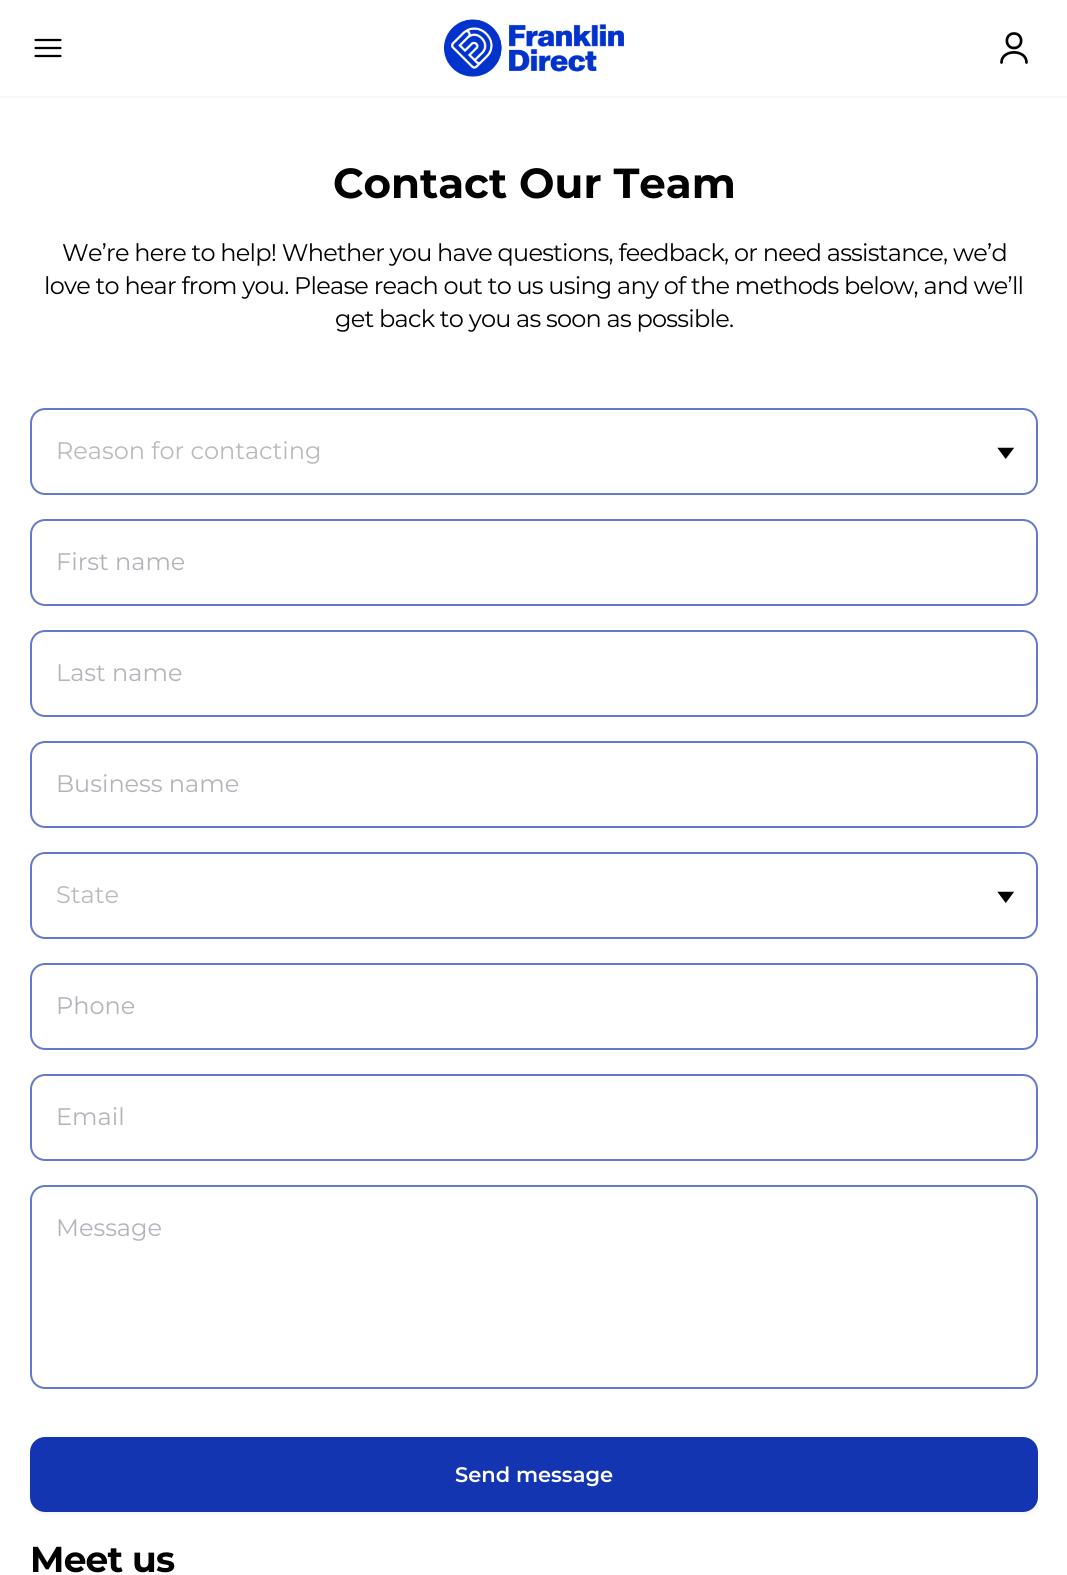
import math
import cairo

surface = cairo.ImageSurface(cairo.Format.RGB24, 1067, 1575)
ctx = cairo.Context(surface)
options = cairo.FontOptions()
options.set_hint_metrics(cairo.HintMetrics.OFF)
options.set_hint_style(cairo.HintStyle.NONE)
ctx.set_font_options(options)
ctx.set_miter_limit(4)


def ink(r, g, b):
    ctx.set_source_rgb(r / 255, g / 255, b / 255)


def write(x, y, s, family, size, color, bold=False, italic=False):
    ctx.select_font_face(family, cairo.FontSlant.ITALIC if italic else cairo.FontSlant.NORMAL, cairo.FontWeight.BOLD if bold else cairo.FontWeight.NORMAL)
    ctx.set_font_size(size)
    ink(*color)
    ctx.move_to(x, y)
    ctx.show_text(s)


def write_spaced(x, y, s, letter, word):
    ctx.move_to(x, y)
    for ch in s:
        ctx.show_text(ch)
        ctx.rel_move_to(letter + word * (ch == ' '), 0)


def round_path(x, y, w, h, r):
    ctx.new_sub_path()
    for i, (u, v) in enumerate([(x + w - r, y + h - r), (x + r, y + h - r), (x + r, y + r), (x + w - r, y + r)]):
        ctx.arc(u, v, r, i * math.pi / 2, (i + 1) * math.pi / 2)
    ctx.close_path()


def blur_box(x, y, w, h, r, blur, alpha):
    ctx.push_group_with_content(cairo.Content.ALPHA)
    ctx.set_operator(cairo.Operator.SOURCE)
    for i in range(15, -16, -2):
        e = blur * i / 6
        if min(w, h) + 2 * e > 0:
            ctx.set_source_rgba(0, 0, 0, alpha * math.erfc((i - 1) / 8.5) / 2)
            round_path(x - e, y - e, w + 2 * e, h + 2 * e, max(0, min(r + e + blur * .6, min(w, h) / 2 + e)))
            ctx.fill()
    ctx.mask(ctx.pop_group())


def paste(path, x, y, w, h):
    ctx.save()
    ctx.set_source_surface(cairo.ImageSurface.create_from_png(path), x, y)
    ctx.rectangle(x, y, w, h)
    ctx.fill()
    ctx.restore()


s1 = dict(family="Montserrat", size=42, color=(0, 0, 0), bold=True)
s2 = dict(family="Montserrat Thin", size=24, color=(186, 186, 186))
s3 = dict(family="Montserrat Thin", size=24, color=(179, 179, 187))
s4 = dict(family="Montserrat SemiBold", size=21, color=(255, 255, 255))

ink(255, 255, 255)
ctx.paint()
ctx.save()
ctx.rectangle(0, 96, 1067, 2)
ctx.clip()
ink(0, 0, 0)
blur_box(0, 2, 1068, 96, 0, 1.5, 0.05)
ctx.restore()
ctx.new_path()
ctx.move_to(35.5, 40)
ctx.line_to(60.5, 40)
ctx.move_to(35.5, 48)
ctx.line_to(60.5, 48)
ctx.move_to(35.5, 56)
ctx.line_to(60.5, 56)
ink(0, 0, 0)
ctx.set_line_width(2.2)
ctx.set_line_cap(cairo.LineCap.ROUND)
ctx.set_line_join(cairo.LineJoin.ROUND)
ctx.stroke()
paste("pic1.png", 444, 19, 180, 58)
ctx.new_path()
ctx.move_to(1014, 48)
ctx.curve_to(1023.5, 48, 1023.5, 33.5, 1014, 33.5)
ctx.curve_to(1004.5, 33.5, 1004.5, 48, 1014, 48)
ctx.close_path()
ctx.move_to(1026.5, 62.5)
ctx.curve_to(1026.5, 49, 1001.5, 49, 1001.5, 62.5)
ctx.set_line_width(2.7)
ctx.stroke()
write(333, 198, "Contact Our Team", **s1)
ctx.select_font_face("Montserrat Thin")
ctx.set_font_size(24)
write_spaced(62, 261, "We’re here to help! Whether you have questions, feedback, or need assistance, we’d", -0.75, 0)
write_spaced(44, 294, "love to hear from you. Please reach out to us using any of the methods below, and we’ll", -0.75, 0)
write_spaced(335, 327, "get back to you as soon as possible.", -0.75, 0)
round_path(31, 409, 1006, 85, 14)
ink(99, 121, 203)
ctx.set_line_width(2)
ctx.set_line_cap(cairo.LineCap.BUTT)
ctx.set_line_join(cairo.LineJoin.MITER)
ctx.stroke()
write(56, 459, "Reason for contacting", **s2)
paste("pic2.png", 997, 447, 17, 12)
round_path(31, 520, 1006, 85, 14)
ink(99, 121, 203)
ctx.stroke()
write(56, 570, "First name", **s3)
round_path(31, 631, 1006, 85, 14)
ink(99, 121, 203)
ctx.stroke()
write(56, 681, "Last name", **s3)
round_path(31, 742, 1006, 85, 14)
ink(99, 121, 203)
ctx.stroke()
write(56, 792, "Business name", **s3)
round_path(31, 853, 1006, 85, 14)
ink(99, 121, 203)
ctx.stroke()
write(56, 903, "State", **s2)
paste("pic2.png", 997, 891, 17, 12)
round_path(31, 964, 1006, 85, 14)
ink(99, 121, 203)
ctx.stroke()
write(56, 1014, "Phone", **s3)
round_path(31, 1075, 1006, 85, 14)
ink(99, 121, 203)
ctx.stroke()
write(56, 1125, "Email", **s3)
round_path(31, 1186, 1006, 202, 14)
ink(99, 121, 203)
ctx.stroke()
write(56, 1236, "Message", **s3)
ink(0, 0, 0)
blur_box(30, 1439, 1008, 75, 15, 1.5, 0.05)
ink(19, 53, 178)
round_path(31, 1438, 1006, 73, 14)
ctx.fill_preserve()
ctx.stroke()
write(455, 1482, "Send message", **s4)
ctx.select_font_face("Montserrat", cairo.FontSlant.NORMAL, cairo.FontWeight.BOLD)
ctx.set_font_size(36)
ink(0, 0, 0)
write_spaced(30, 1572, "Meet us", -0.75, 0)
surface.write_to_png("screenshot.png")
